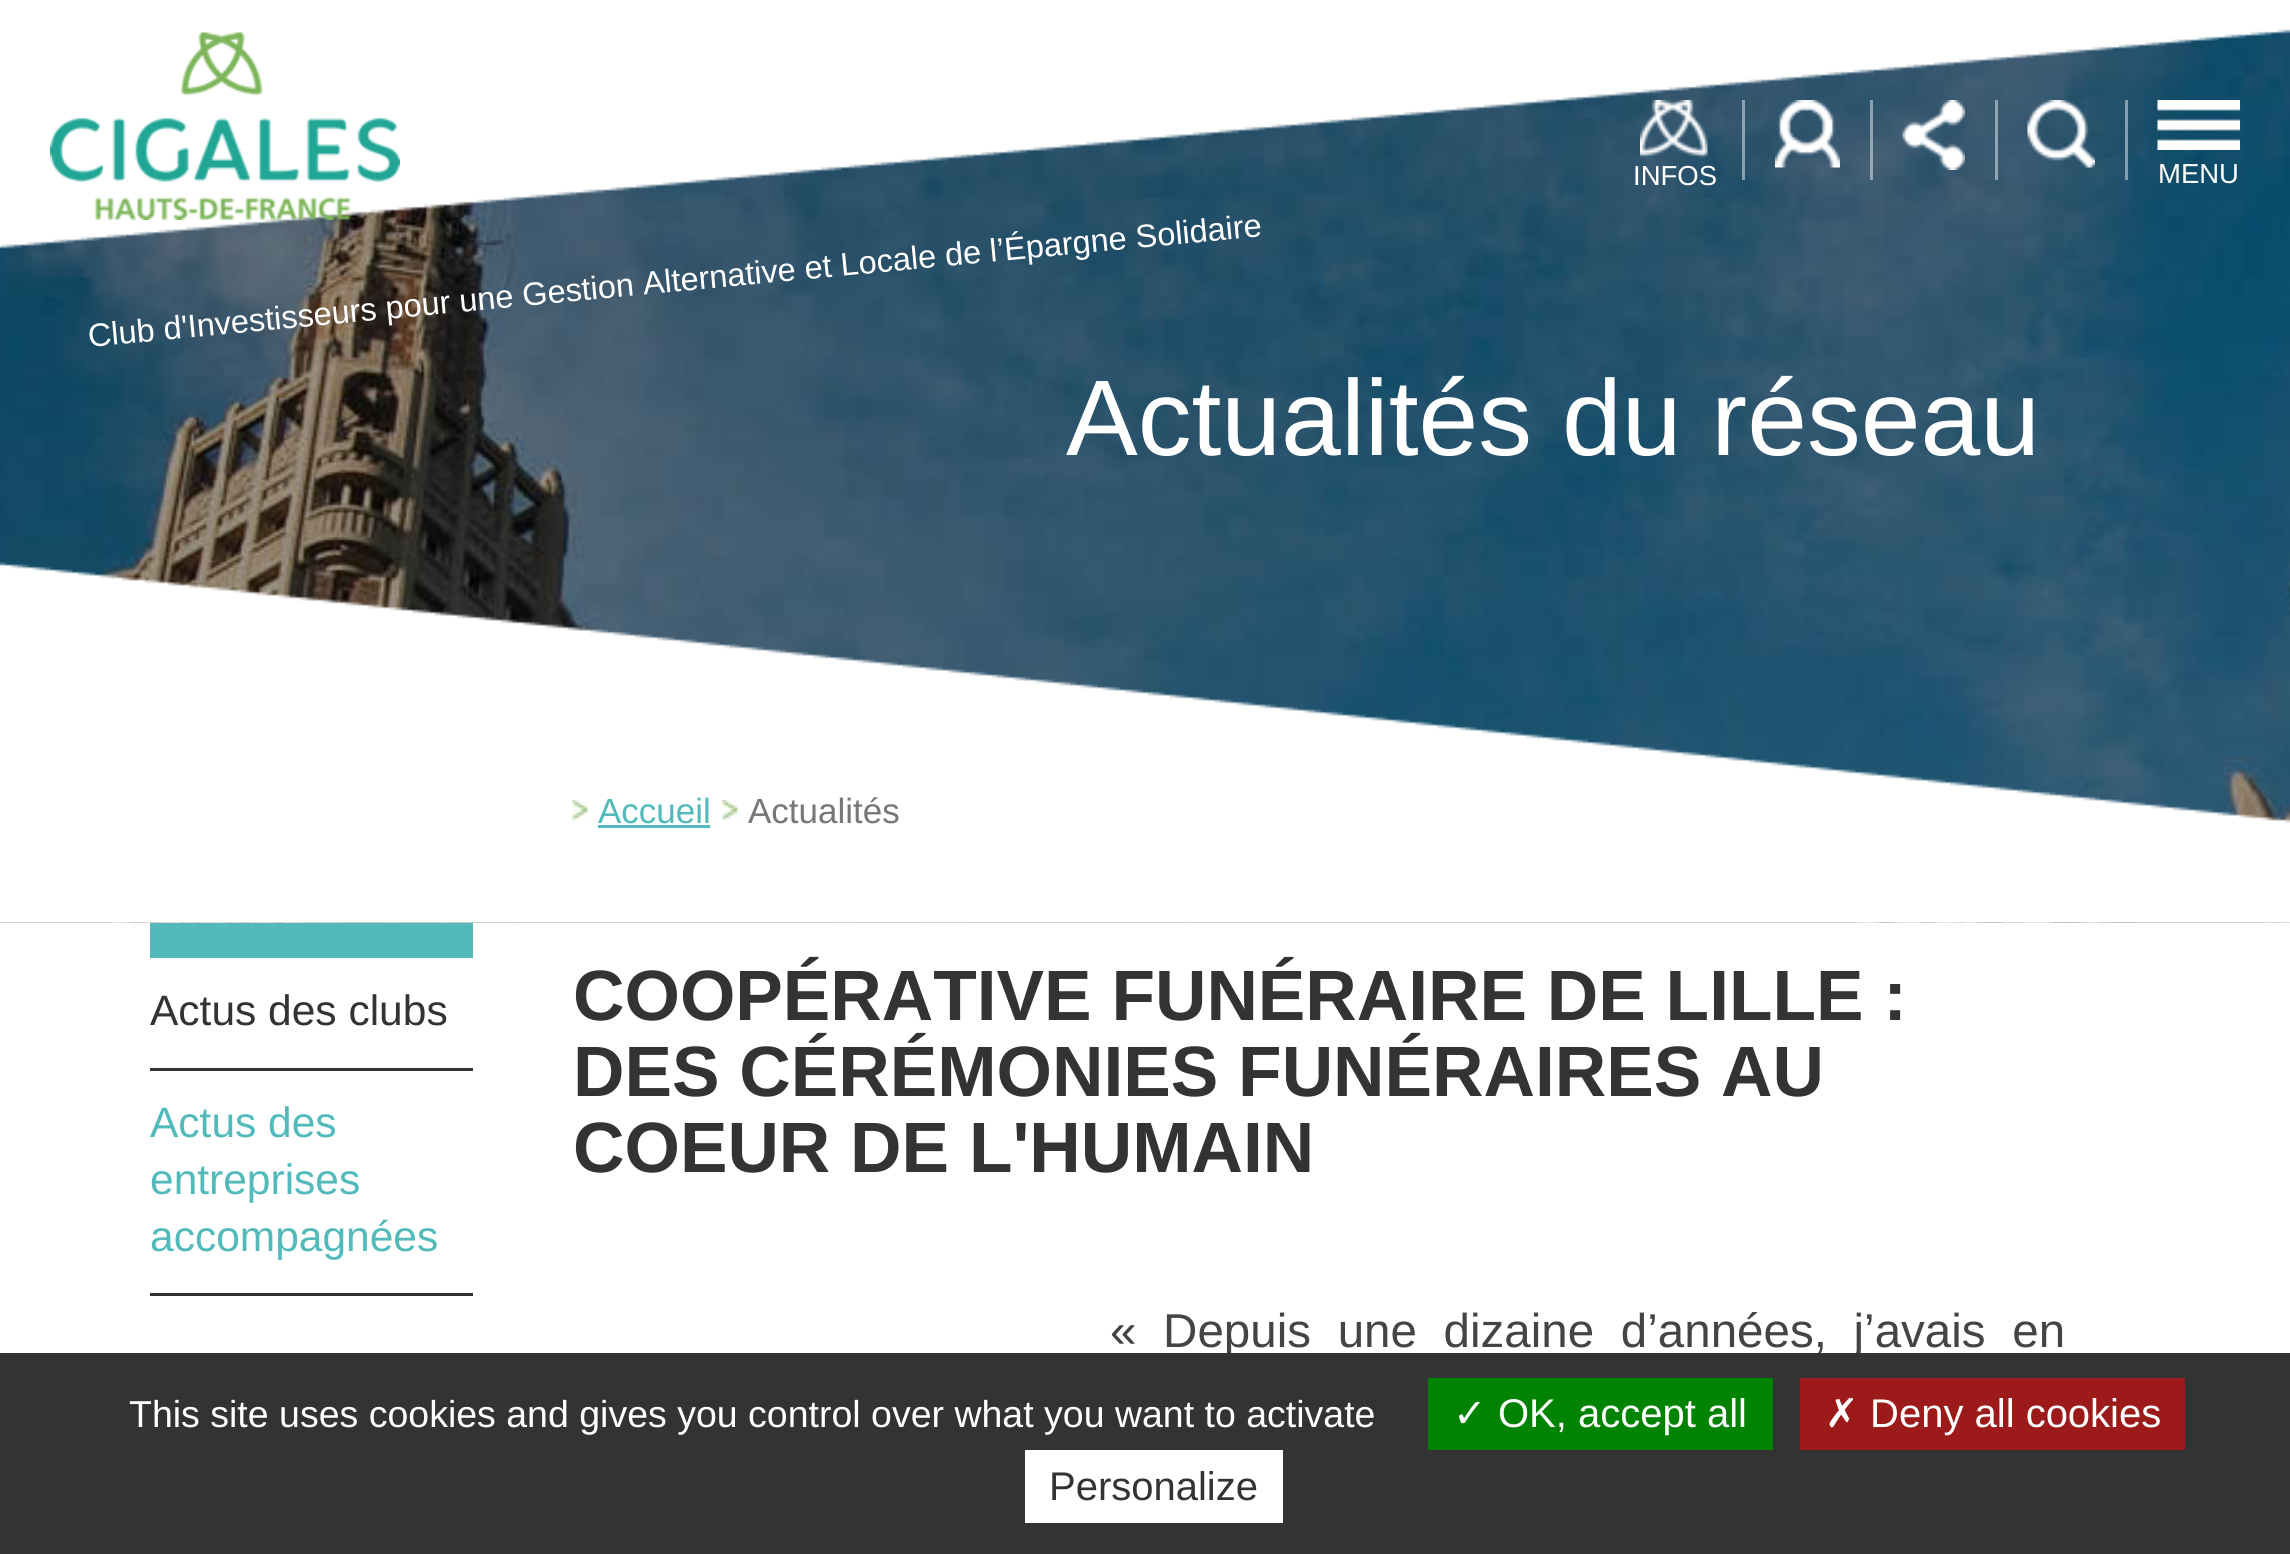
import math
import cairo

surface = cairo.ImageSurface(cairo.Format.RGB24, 2290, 1554)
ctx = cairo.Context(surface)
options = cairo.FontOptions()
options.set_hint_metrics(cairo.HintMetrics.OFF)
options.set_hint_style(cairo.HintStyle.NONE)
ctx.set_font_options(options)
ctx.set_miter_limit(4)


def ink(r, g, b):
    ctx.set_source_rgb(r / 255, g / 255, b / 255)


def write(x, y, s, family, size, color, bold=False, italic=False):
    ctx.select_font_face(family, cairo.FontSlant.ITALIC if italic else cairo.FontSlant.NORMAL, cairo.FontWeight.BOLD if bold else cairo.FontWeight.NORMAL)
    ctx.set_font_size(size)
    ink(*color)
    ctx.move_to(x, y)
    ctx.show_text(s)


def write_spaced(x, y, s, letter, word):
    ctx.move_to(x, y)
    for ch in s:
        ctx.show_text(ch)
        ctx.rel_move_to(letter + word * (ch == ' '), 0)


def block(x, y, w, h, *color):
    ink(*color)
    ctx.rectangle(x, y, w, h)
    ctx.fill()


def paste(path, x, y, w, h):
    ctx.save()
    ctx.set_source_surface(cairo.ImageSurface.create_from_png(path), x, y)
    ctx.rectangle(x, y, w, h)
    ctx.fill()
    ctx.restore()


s1 = dict(family="Arimo", size=27.5, color=(255, 255, 255))
s2 = dict(family="Arimo", size=32.5, color=(255, 255, 255))
s3 = dict(family="Arimo", size=107.5, color=(255, 255, 255))
s4 = dict(family="Arimo", size=42.5, color=(51, 51, 51))
s5 = dict(family="Arimo", size=42.5, color=(82, 186, 186))
s6 = dict(family="Arimo", size=35, color=(82, 186, 186))
s7 = dict(family="Arimo", size=35, color=(119, 119, 119))
s8 = dict(family="Arimo", size=71.25, color=(51, 51, 51), bold=True)
s9 = dict(family="Liberation Sans", size=37.5, color=(255, 255, 255))
s10 = dict(family="DejaVu Sans", size=40, color=(255, 255, 255))
s11 = dict(family="Liberation Sans", size=40, color=(255, 255, 255))
s12 = dict(family="Liberation Sans", size=40, color=(51, 51, 51))

ink(255, 255, 255)
ctx.paint()
paste("pic8.png", 0, 29, 2290, 894)
paste("pic1.png", 0, 0, 2290, 249)
paste("pic2.png", 1640, 100, 68, 58)
write(1633, 185, "INFOS", **s1)
ctx.set_source_rgba(1, 1, 1, 0.45)
ctx.rectangle(1742, 100, 3, 80)
ctx.fill()
paste("pic3.png", 1775, 100, 65, 68)
ctx.rectangle(1870, 100, 3, 80)
ctx.fill()
paste("pic4.png", 1902, 100, 63, 70)
ctx.rectangle(1995, 100, 3, 80)
ctx.fill()
paste("pic5.png", 2027, 100, 68, 68)
ctx.rectangle(2125, 100, 3, 80)
ctx.fill()
paste("pic6.png", 2157, 100, 83, 50)
write(2158, 183, "MENU", **s1)
paste("pic7.png", 50, 32, 350, 188)
ctx.save()
ctx.translate(89, 347)
ctx.rotate(-5.4 * math.pi / 180)
write(0, 0, "Club d'Investisseurs pour une Gestion Alternative et Locale de l’Épargne Solidaire", **s2)
ctx.restore()
write(1066, 455, "Actualités du réseau", **s3)
paste("pic9.png", 0, 562, 2290, 361)
block(150, 923, 323, 35, 82, 186, 186)
block(150, 1068, 323, 3, 51, 51, 51)
write(150, 1025, "Actus des clubs", **s4)
block(150, 1293, 323, 3, 51, 51, 51)
write(150, 1137, "Actus des", **s5)
write(150, 1194, "entreprises", **s5)
write(150, 1251, "accompagnées", **s5)
paste("pic10.png", 572, 800, 16, 20)
write(598, 823, "Accueil", **s6)
block(598, 825, 112, 3, 82, 186, 186)
paste("pic11.png", 722, 800, 16, 20)
write(748, 823, "Actualités", **s7)
write(573, 1020, "COOPÉRATIVE FUNÉRAIRE DE LILLE :", **s8)
write(573, 1096, "DES CÉRÉMONIES FUNÉRAIRES AU", **s8)
write(573, 1172, "COEUR DE L'HUMAIN", **s8)
ctx.select_font_face("Arimo")
ctx.set_font_size(47.5)
ink(68, 68, 68)
write_spaced(1110, 1347, "« Depuis une dizaine d’années, j’avais en", 0, 13.5)
block(0, 1353, 2290, 201, 51, 51, 51)
write(129, 1427, "This site uses cookies and gives you control over what you want to activate", **s9)
block(1428, 1378, 345, 72, 0, 131, 0)
write(1453, 1427, "✓", **s10)
write(1498, 1427, "OK, accept all", **s11)
block(1800, 1378, 385, 72, 156, 26, 26)
write(1825, 1427, "✗", **s10)
write(1870, 1427, "Deny all cookies", **s11)
block(1025, 1450, 258, 73, 255, 255, 255)
write(1049, 1500, "Personalize", **s12)
surface.write_to_png("screenshot.png")
